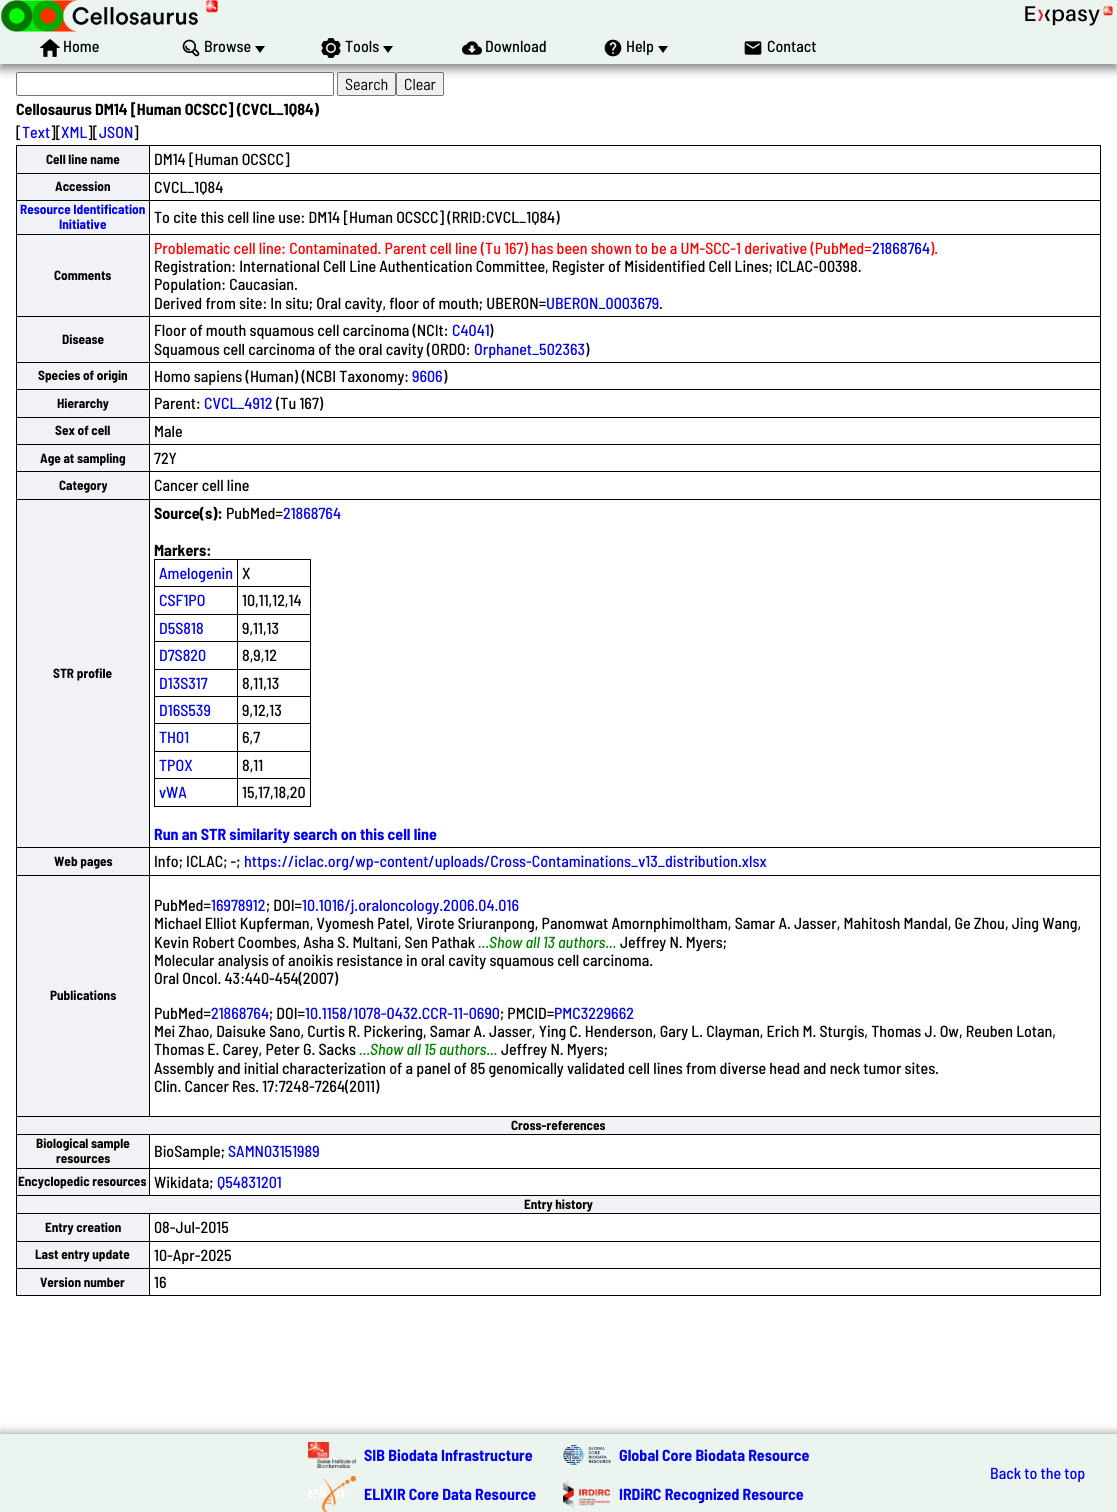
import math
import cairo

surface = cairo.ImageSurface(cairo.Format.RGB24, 1117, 1512)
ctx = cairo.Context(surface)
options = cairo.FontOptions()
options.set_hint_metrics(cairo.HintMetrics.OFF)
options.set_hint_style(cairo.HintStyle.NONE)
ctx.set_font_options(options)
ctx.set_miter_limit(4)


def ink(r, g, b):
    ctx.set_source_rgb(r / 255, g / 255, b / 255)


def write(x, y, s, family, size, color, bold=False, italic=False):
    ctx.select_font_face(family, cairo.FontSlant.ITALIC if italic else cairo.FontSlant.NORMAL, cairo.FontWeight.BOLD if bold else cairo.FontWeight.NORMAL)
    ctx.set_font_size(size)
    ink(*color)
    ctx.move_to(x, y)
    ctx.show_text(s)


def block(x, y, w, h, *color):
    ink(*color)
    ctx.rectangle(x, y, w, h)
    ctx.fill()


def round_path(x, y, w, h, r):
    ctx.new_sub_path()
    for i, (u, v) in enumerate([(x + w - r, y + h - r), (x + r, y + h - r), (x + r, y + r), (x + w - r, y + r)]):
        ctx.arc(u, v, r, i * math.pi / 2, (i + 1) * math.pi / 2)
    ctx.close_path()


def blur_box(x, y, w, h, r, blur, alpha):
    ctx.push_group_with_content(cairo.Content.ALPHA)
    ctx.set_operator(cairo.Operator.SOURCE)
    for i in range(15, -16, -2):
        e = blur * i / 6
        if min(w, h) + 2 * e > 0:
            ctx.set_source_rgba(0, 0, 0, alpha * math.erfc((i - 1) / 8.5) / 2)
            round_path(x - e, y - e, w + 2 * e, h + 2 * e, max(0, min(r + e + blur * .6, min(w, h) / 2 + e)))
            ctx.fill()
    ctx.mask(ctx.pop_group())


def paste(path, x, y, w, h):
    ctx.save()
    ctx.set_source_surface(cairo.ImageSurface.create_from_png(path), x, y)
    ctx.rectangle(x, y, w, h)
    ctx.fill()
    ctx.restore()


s1 = dict(family="Barlow Semi Condensed Medium", size=16, color=(0, 0, 0))
s2 = dict(family="Barlow Semi Condensed", size=16, color=(0, 0, 0))
s3 = dict(family="Barlow Semi Condensed", size=16, color=(0, 0, 0), bold=True)
s4 = dict(family="Barlow Semi Condensed Medium", size=16, color=(0, 0, 238))
s5 = dict(family="Barlow Semi Condensed", size=13.25, color=(0, 0, 0), bold=True)
s6 = dict(family="Barlow Semi Condensed", size=13.25, color=(0, 0, 238), bold=True)
s7 = dict(family="Barlow Semi Condensed Medium", size=16, color=(255, 0, 0))
s8 = dict(family="Barlow Semi Condensed", size=16, color=(0, 0, 238), bold=True)
s9 = dict(family="Barlow Semi Condensed Medium", size=16, color=(0, 128, 0), italic=True)

ink(255, 255, 255)
ctx.paint()
ink(136, 136, 136)
blur_box(0, 5, 1117, 64, 0, 5, 1)
block(0, 0, 1117, 64, 236, 244, 240)
paste("pic1.png", 0, 0, 219, 32)
paste("pic2.png", 1025, 6, 88, 20)
paste("pic3.png", 40, 39, 20, 18)
write(63, 52, "Home", **s1)
paste("pic4.png", 182, 39, 18, 18)
write(204, 52, "Browse", **s1)
ctx.new_path()
ctx.move_to(255, 46)
ctx.line_to(265, 46)
ctx.line_to(260, 53)
ctx.close_path()
ctx.fill()
paste("pic5.png", 321, 38, 20, 20)
write(345, 52, "Tools", **s1)
ctx.new_path()
ctx.move_to(383, 46)
ctx.line_to(393, 46)
ctx.line_to(388, 53)
ctx.close_path()
ctx.fill()
paste("pic6.png", 462, 41, 20, 14)
write(485, 52, "Download", **s1)
paste("pic7.png", 604, 39, 18, 18)
write(626, 52, "Help", **s1)
ctx.new_path()
ctx.move_to(658, 46)
ctx.line_to(668, 46)
ctx.line_to(663, 53)
ctx.close_path()
ctx.fill()
paste("pic8.png", 744, 41, 18, 14)
write(767, 52, "Contact", **s1)
ink(255, 255, 255)
round_path(16.5, 72.5, 317, 23, 1.5)
ctx.fill_preserve()
ink(118, 118, 118)
ctx.set_line_width(1)
ctx.stroke()
ink(239, 239, 239)
round_path(337.5, 72.5, 58, 23, 1.5)
ctx.fill_preserve()
ink(118, 118, 118)
ctx.stroke()
write(345, 90, "Search", **s2)
ink(239, 239, 239)
round_path(396.5, 72.5, 47, 23, 1.5)
ctx.fill_preserve()
ink(118, 118, 118)
ctx.stroke()
write(404, 90, "Clear", **s2)
write(16, 115, "Cellosaurus DM14 [Human OCSCC] (CVCL_1Q84)", **s3)
write(16, 138, "[", **s1)
write(22, 138, "Text", **s4)
write(50, 138, "][", **s1)
write(61, 138, "XML", **s4)
write(87, 138, "][", **s1)
write(99, 138, "JSON", **s4)
write(133, 138, "]", **s1)
block(16, 145, 1085, 1, 0, 0, 0)
block(1100, 145, 1, 1151, 0, 0, 0)
block(16, 1295, 1085, 1, 0, 0, 0)
block(16, 145, 1, 1151, 0, 0, 0)
block(17, 146, 132, 27, 240, 242, 245)
write(46, 164, "Cell line name", **s5)
write(154, 165, "DM14 [Human OCSCC]", **s1)
block(16, 173, 1085, 1, 0, 0, 0)
block(17, 174, 132, 26, 240, 242, 245)
write(55, 191, "Accession", **s5)
write(154, 193, "CVCL_1Q84", **s1)
block(16, 200, 1085, 1, 0, 0, 0)
block(17, 201, 132, 33, 240, 242, 245)
write(20, 214, "Resource Identification", **s6)
write(59, 229, "Initiative", **s6)
write(154, 223, "To cite this cell line use: DM14 [Human OCSCC] (RRID:CVCL_1Q84)", **s1)
block(16, 234, 1085, 1, 0, 0, 0)
block(17, 235, 132, 81, 240, 242, 245)
write(54, 280, "Comments", **s5)
write(154, 254, "Problematic cell line: Contaminated. Parent cell line (Tu 167) has been shown to be a UM-SCC-1 derivative (PubMed=", **s7)
write(872, 254, "21868764", **s4)
write(930, 254, ").", **s7)
write(154, 272, "Registration: International Cell Line Authentication Committee, Register of Misidentified Cell Lines; ICLAC-00398.", **s1)
write(154, 290, "Population: Caucasian.", **s1)
write(154, 309, "Derived from site: In situ; Oral cavity, floor of mouth; UBERON=", **s1)
write(546, 309, "UBERON_0003679", **s4)
write(659, 309, ".", **s1)
block(16, 316, 1085, 1, 0, 0, 0)
block(17, 317, 132, 45, 240, 242, 245)
write(62, 344, "Disease", **s5)
write(154, 336, "Floor of mouth squamous cell carcinoma (NCIt:", **s1)
write(452, 336, "C4041", **s4)
write(489, 336, ")", **s1)
write(154, 355, "Squamous cell carcinoma of the oral cavity (ORDO:", **s1)
write(474, 355, "Orphanet_502363", **s4)
write(585, 355, ")", **s1)
block(16, 362, 1085, 1, 0, 0, 0)
block(17, 363, 132, 26, 240, 242, 245)
write(38, 380, "Species of origin", **s5)
write(154, 382, "Homo sapiens (Human) (NCBI Taxonomy:", **s1)
write(412, 382, "9606", **s4)
write(443, 382, ")", **s1)
block(16, 389, 1085, 1, 0, 0, 0)
block(17, 390, 132, 27, 240, 242, 245)
write(57, 408, "Hierarchy", **s5)
write(154, 409, "Parent:", **s1)
write(204, 409, "CVCL_4912", **s4)
write(276, 409, "(Tu 167)", **s1)
block(16, 417, 1085, 1, 0, 0, 0)
block(17, 418, 132, 26, 240, 242, 245)
write(55, 435, "Sex of cell", **s5)
write(154, 437, "Male", **s1)
block(16, 444, 1085, 1, 0, 0, 0)
block(17, 445, 132, 26, 240, 242, 245)
write(40, 463, "Age at sampling", **s5)
write(154, 464, "72Y", **s1)
block(16, 471, 1085, 1, 0, 0, 0)
block(17, 472, 132, 27, 240, 242, 245)
write(59, 490, "Category", **s5)
write(154, 491, "Cancer cell line", **s1)
block(16, 499, 1085, 1, 0, 0, 0)
block(17, 500, 132, 347, 240, 242, 245)
write(53, 678, "STR profile", **s5)
write(154, 519, "Source(s):", **s3)
write(226, 519, "PubMed=", **s1)
write(283, 519, "21868764", **s4)
write(154, 556, "Markers:", **s3)
block(154, 559, 157, 1, 0, 0, 0)
block(310, 559, 1, 248, 0, 0, 0)
block(154, 806, 157, 1, 0, 0, 0)
block(154, 559, 1, 248, 0, 0, 0)
write(159, 579, "Amelogenin", **s4)
write(242, 579, "X", **s1)
block(154, 586, 157, 1, 0, 0, 0)
write(159, 606, "CSF1PO", **s4)
write(242, 606, "10,11,12,14", **s1)
block(154, 614, 157, 1, 0, 0, 0)
write(159, 634, "D5S818", **s4)
write(242, 634, "9,11,13", **s1)
block(154, 641, 157, 1, 0, 0, 0)
write(159, 661, "D7S820", **s4)
write(242, 661, "8,9,12", **s1)
block(154, 669, 157, 1, 0, 0, 0)
write(159, 689, "D13S317", **s4)
write(242, 689, "8,11,13", **s1)
block(154, 696, 157, 1, 0, 0, 0)
write(159, 716, "D16S539", **s4)
write(242, 716, "9,12,13", **s1)
block(154, 723, 157, 1, 0, 0, 0)
write(159, 743, "TH01", **s4)
write(242, 743, "6,7", **s1)
block(154, 751, 157, 1, 0, 0, 0)
write(159, 771, "TPOX", **s4)
write(242, 771, "8,11", **s1)
block(154, 778, 157, 1, 0, 0, 0)
write(159, 798, "vWA", **s4)
block(237, 559, 1, 248, 0, 0, 0)
write(242, 798, "15,17,18,20", **s1)
write(154, 840, "Run an STR similarity search on this cell line", **s8)
block(16, 847, 1085, 1, 0, 0, 0)
block(17, 848, 132, 27, 240, 242, 245)
write(54, 866, "Web pages", **s5)
write(154, 867, "Info; ICLAC; -;", **s1)
write(244, 867, "https://iclac.org/wp-content/uploads/Cross-Contaminations_v13_distribution.xlsx", **s4)
block(16, 875, 1085, 1, 0, 0, 0)
block(17, 876, 132, 240, 240, 242, 245)
write(50, 1000, "Publications", **s5)
block(16, 1116, 1085, 1, 0, 0, 0)
block(149, 145, 1, 972, 0, 0, 0)
write(154, 911, "PubMed=", **s1)
write(211, 911, "16978912", **s4)
write(266, 911, "; DOI=", **s1)
write(302, 911, "10.1016/j.oraloncology.2006.04.016", **s4)
write(154, 929, "Michael Elliot Kupferman, Vyomesh Patel, Virote Sriuranpong, Panomwat Amornphimoltham, Samar A. Jasser, Mahitosh Mandal, Ge Zhou, Jing Wang,", **s1)
write(154, 948, "Kevin Robert Coombes, Asha S. Multani, Sen Pathak", **s1)
write(478, 948, "...Show all 13 authors...", **s9)
write(620, 948, "Jeffrey N. Myers;", **s1)
write(154, 966, "Molecular analysis of anoikis resistance in oral cavity squamous cell carcinoma.", **s1)
write(154, 984, "Oral Oncol. 43:440-454(2007)", **s1)
write(154, 1019, "PubMed=", **s1)
write(211, 1019, "21868764", **s4)
write(269, 1019, "; DOI=", **s1)
write(305, 1019, "10.1158/1078-0432.CCR-11-0690", **s4)
write(500, 1019, "; PMCID=", **s1)
write(554, 1019, "PMC3229662", **s4)
write(154, 1037, "Mei Zhao, Daisuke Sano, Curtis R. Pickering, Samar A. Jasser, Ying C. Henderson, Gary L. Clayman, Erich M. Sturgis, Thomas J. Ow, Reuben Lotan,", **s1)
write(154, 1055, "Thomas E. Carey, Peter G. Sacks", **s1)
write(359, 1055, "...Show all 15 authors...", **s9)
write(501, 1055, "Jeffrey N. Myers;", **s1)
write(154, 1074, "Assembly and initial characterization of a panel of 85 genomically validated cell lines from diverse head and neck tumor sites.", **s1)
write(154, 1092, "Clin. Cancer Res. 17:7248-7264(2011)", **s1)
block(17, 1117, 1083, 17, 240, 242, 245)
write(511, 1130, "Cross-references", **s5)
block(16, 1134, 1085, 1, 0, 0, 0)
block(17, 1135, 132, 33, 240, 242, 245)
write(36, 1148, "Biological sample", **s5)
write(56, 1163, "resources", **s5)
write(154, 1157, "BioSample;", **s1)
write(228, 1157, "SAMN03151989", **s4)
block(16, 1168, 1085, 1, 0, 0, 0)
block(17, 1169, 132, 26, 240, 242, 245)
write(18, 1186, "Encyclopedic resources", **s5)
block(16, 1195, 1085, 1, 0, 0, 0)
block(149, 1134, 1, 62, 0, 0, 0)
write(154, 1188, "Wikidata;", **s1)
write(217, 1188, "Q54831201", **s4)
block(17, 1196, 1083, 17, 240, 242, 245)
write(524, 1209, "Entry history", **s5)
block(16, 1213, 1085, 1, 0, 0, 0)
block(17, 1214, 132, 27, 240, 242, 245)
write(45, 1232, "Entry creation", **s5)
write(154, 1233, "08-Jul-2015", **s1)
block(16, 1241, 1085, 1, 0, 0, 0)
block(17, 1242, 132, 26, 240, 242, 245)
write(35, 1259, "Last entry update", **s5)
write(154, 1261, "10-Apr-2025", **s1)
block(16, 1268, 1085, 1, 0, 0, 0)
block(17, 1269, 132, 26, 240, 242, 245)
write(40, 1287, "Version number", **s5)
block(149, 1213, 1, 83, 0, 0, 0)
write(154, 1288, "16", **s1)
ink(136, 136, 136)
blur_box(0, 1434, 1117, 78, 0, 5, 1)
block(0, 1434, 1117, 78, 236, 244, 240)
paste("pic9.png", 308, 1442, 48, 26)
write(364, 1461, "SIB Biodata Infrastructure", **s8)
paste("pic10.png", 563, 1445, 48, 20)
write(619, 1461, "Global Core Biodata Resource", **s8)
paste("pic11.png", 308, 1476, 48, 36)
write(364, 1500, "ELIXIR Core Data Resource", **s8)
paste("pic12.png", 563, 1480, 47, 28)
write(619, 1500, "IRDiRC Recognized Resource", **s8)
write(990, 1479, "Back to the top", **s4)
surface.write_to_png("screenshot.png")
